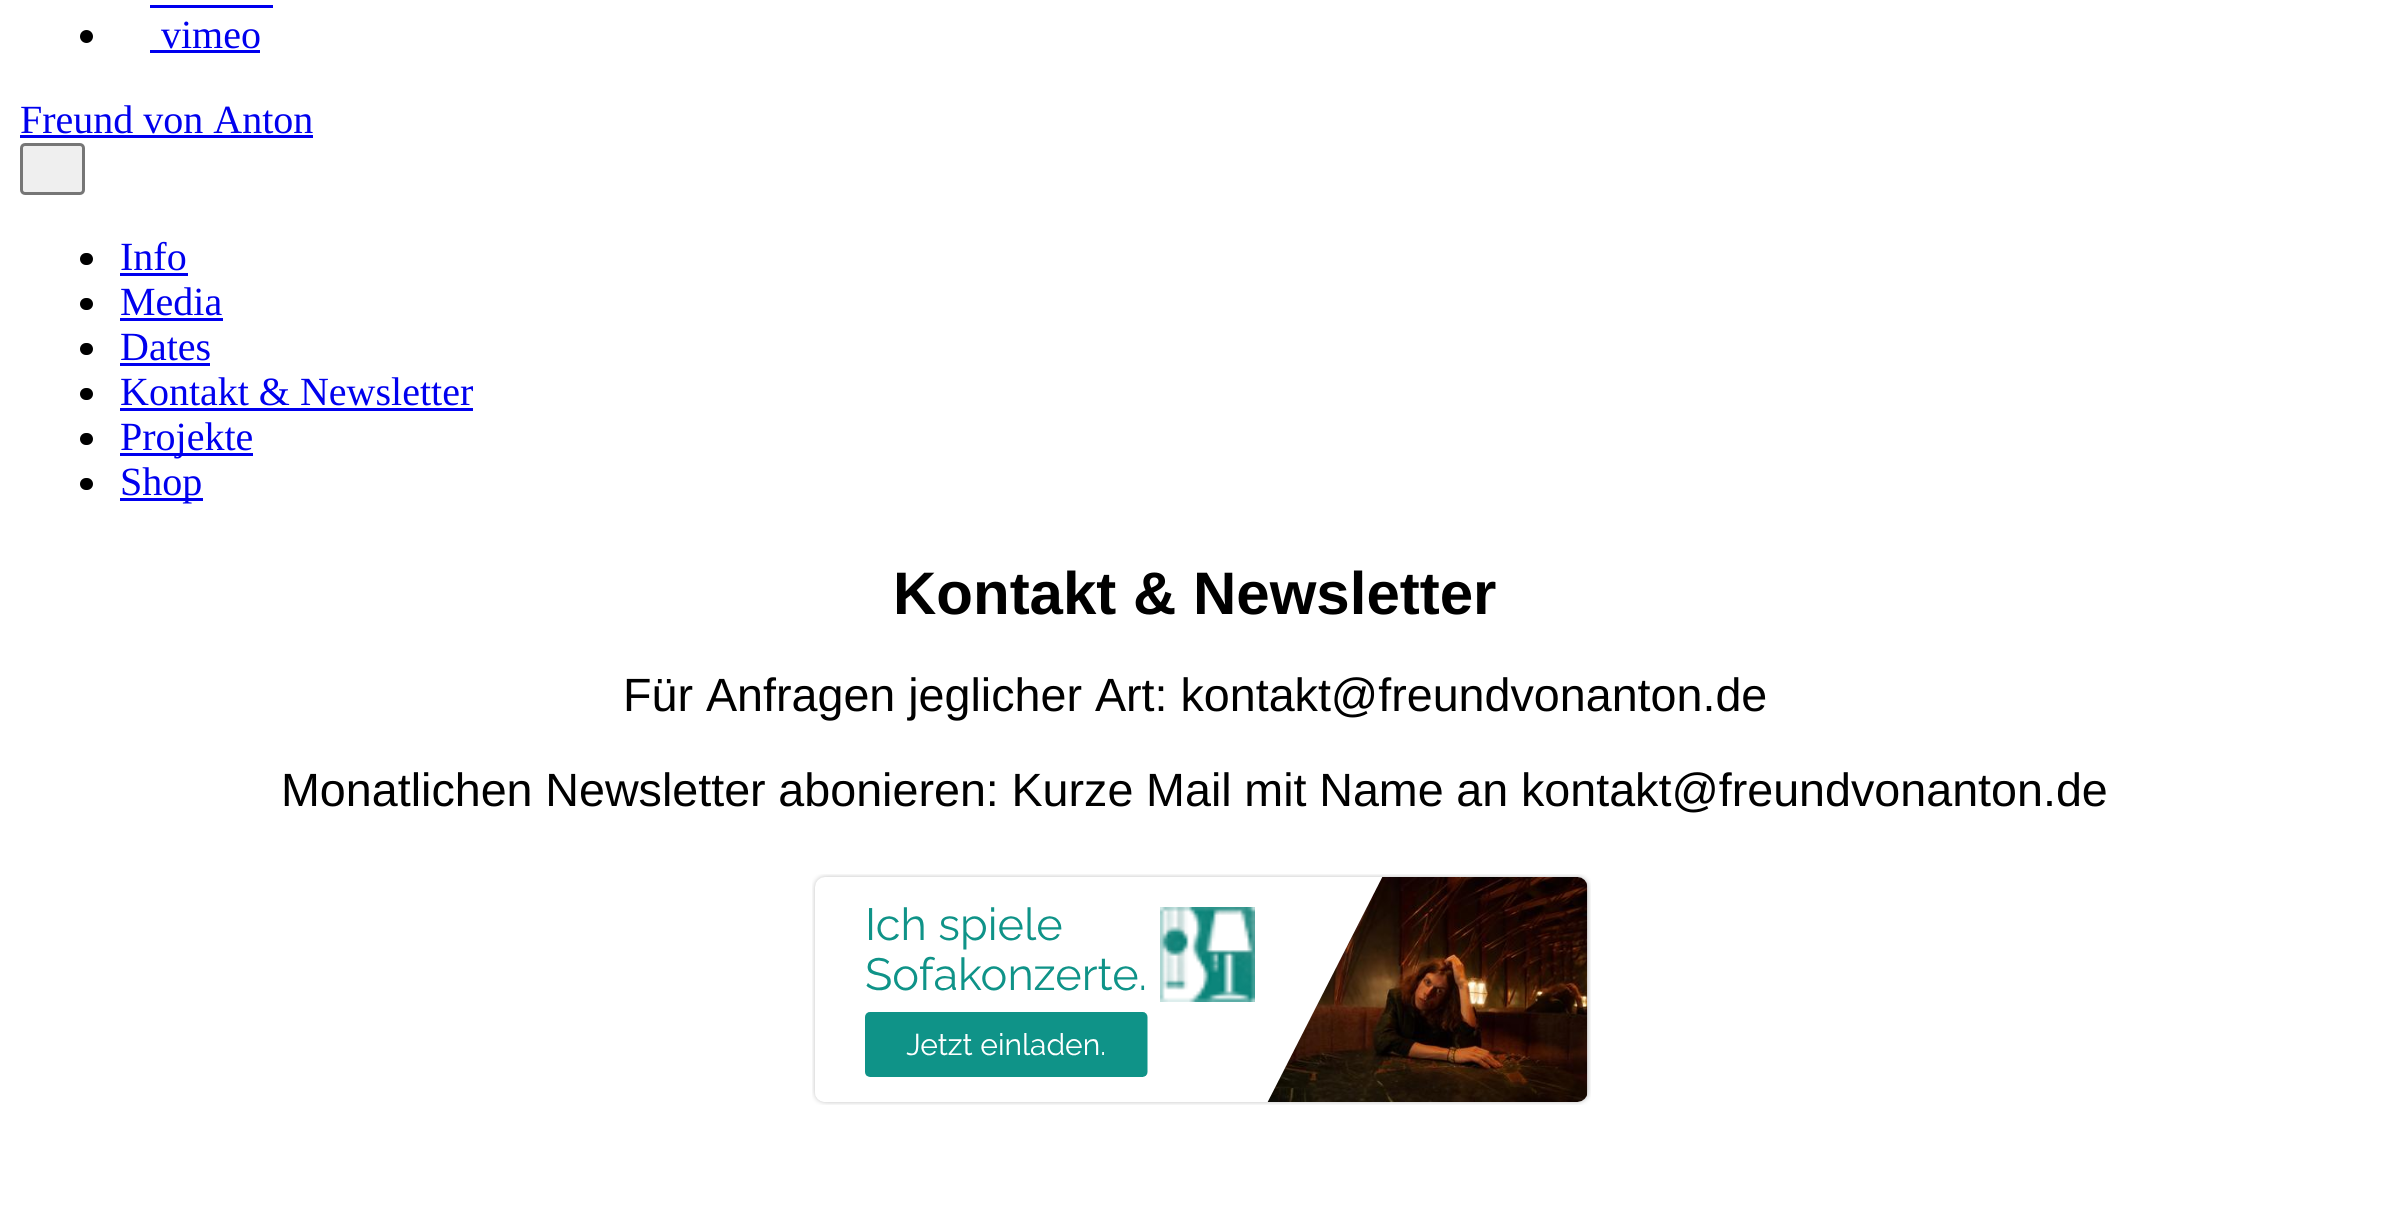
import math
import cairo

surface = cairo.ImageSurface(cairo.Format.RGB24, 2388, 1205)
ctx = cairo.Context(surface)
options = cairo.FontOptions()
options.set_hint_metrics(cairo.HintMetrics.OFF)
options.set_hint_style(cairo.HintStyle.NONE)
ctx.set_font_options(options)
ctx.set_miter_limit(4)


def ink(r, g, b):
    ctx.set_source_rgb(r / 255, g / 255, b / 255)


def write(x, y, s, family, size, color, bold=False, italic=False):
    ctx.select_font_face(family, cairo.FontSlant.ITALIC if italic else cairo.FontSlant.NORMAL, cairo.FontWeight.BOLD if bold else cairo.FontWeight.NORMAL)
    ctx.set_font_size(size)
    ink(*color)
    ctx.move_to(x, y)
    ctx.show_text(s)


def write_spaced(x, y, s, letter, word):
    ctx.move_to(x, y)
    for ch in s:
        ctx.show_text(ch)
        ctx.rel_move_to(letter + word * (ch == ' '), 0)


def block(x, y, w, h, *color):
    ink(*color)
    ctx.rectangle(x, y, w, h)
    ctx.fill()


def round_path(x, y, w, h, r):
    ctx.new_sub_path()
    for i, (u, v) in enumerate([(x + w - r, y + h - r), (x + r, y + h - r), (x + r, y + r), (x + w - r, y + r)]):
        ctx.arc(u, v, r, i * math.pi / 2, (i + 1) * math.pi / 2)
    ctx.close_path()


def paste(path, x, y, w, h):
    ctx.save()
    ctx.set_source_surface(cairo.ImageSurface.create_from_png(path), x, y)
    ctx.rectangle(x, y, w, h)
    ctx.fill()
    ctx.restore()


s1 = dict(family="Liberation Serif", size=40, color=(0, 0, 238))
s2 = dict(family="Liberation Sans", size=60, color=(0, 0, 0), bold=True)
s3 = dict(family="Liberation Sans", size=46.65, color=(0, 0, 0))

ink(255, 255, 255)
ctx.paint()
block(150, 5, 123, 3, 0, 0, 238)
ink(0, 0, 0)
ctx.arc(86.5, 36.5, 6.5, 0, 2 * math.pi)
ctx.fill()
write(161, 48, "vimeo", **s1)
block(150, 50, 110, 3, 0, 0, 238)
write(20, 133, "Freund von Anton", **s1)
block(20, 135, 293, 3, 0, 0, 238)
ink(239, 239, 239)
round_path(21.5, 144.5, 62, 49, 3.5)
ctx.fill_preserve()
ink(118, 118, 118)
ctx.set_line_width(3)
ctx.stroke()
ink(0, 0, 0)
round_path(80, 253, 13, 12, 6)
ctx.fill()
write(120, 270, "Info", **s1)
block(120, 273, 68, 3, 0, 0, 238)
ink(0, 0, 0)
round_path(80, 298, 13, 12, 6)
ctx.fill()
write(120, 315, "Media", **s1)
block(120, 318, 103, 3, 0, 0, 238)
ink(0, 0, 0)
round_path(80, 343, 13, 12, 6)
ctx.fill()
write(120, 360, "Dates", **s1)
block(120, 363, 90, 3, 0, 0, 238)
ink(0, 0, 0)
round_path(80, 388, 13, 12, 6)
ctx.fill()
write(120, 405, "Kontakt & Newsletter", **s1)
block(120, 408, 353, 3, 0, 0, 238)
ink(0, 0, 0)
round_path(80, 433, 13, 12, 6)
ctx.fill()
block(120, 453, 133, 3, 0, 0, 238)
write(120, 450, "Projekte", **s1)
ink(0, 0, 0)
round_path(80, 478, 13, 12, 6)
ctx.fill()
block(120, 498, 83, 3, 0, 0, 238)
write(120, 495, "Shop", **s1)
write(893, 614, "Kontakt & Newsletter", **s2)
write(623, 711, "Für Anfragen jeglicher Art: kontakt@freundvonanton.de", **s3)
write_spaced(281, 806, "Monatlichen Newsletter abonieren: Kurze Mail mit Name an kontakt@freundvonanton.de", 0, -0.25)
paste("pic1.png", 812, 874, 779, 231)
surface.write_to_png("screenshot.png")
